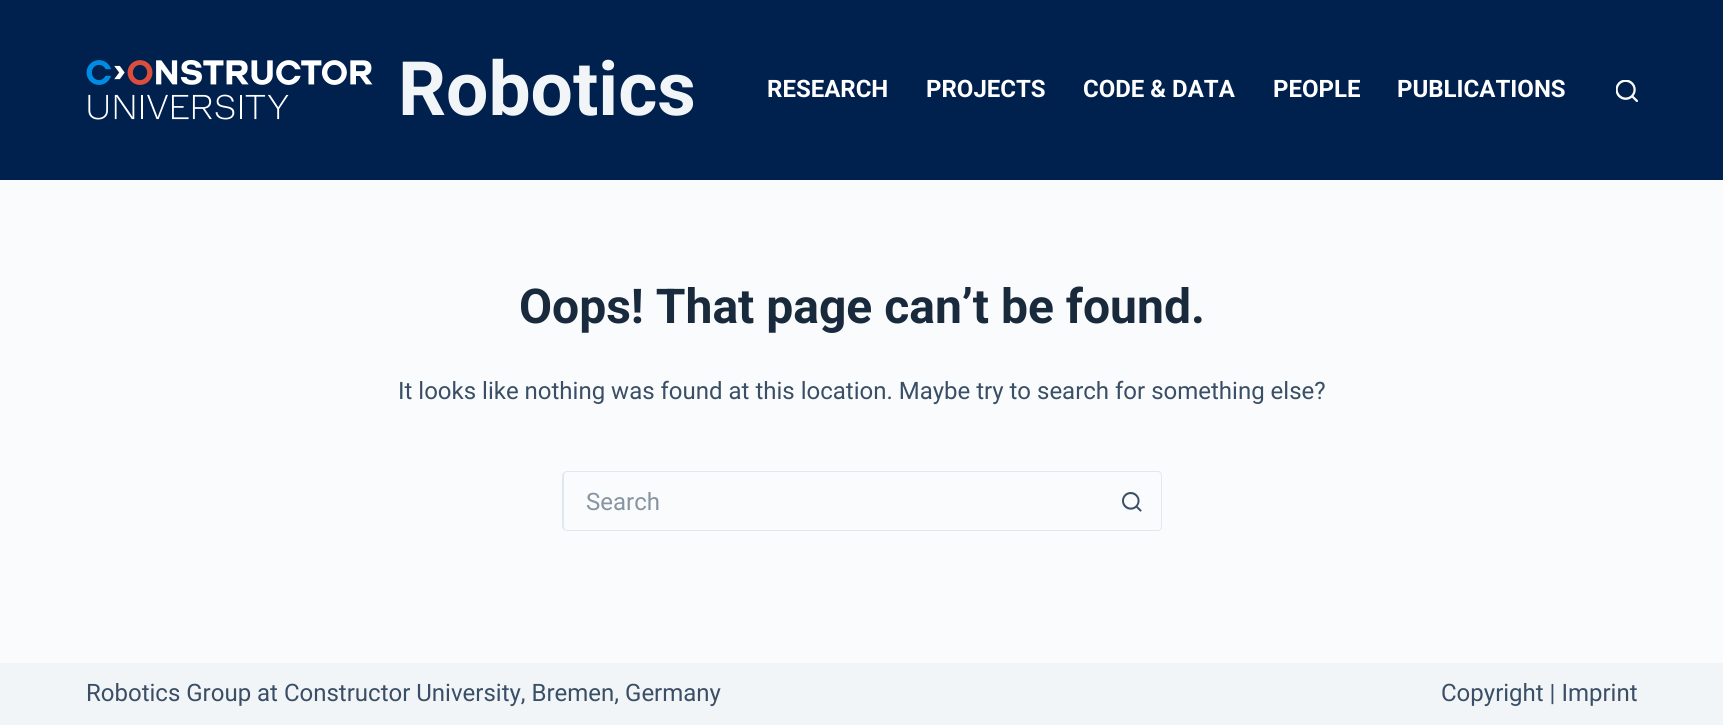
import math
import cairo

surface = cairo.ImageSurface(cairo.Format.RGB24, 1723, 725)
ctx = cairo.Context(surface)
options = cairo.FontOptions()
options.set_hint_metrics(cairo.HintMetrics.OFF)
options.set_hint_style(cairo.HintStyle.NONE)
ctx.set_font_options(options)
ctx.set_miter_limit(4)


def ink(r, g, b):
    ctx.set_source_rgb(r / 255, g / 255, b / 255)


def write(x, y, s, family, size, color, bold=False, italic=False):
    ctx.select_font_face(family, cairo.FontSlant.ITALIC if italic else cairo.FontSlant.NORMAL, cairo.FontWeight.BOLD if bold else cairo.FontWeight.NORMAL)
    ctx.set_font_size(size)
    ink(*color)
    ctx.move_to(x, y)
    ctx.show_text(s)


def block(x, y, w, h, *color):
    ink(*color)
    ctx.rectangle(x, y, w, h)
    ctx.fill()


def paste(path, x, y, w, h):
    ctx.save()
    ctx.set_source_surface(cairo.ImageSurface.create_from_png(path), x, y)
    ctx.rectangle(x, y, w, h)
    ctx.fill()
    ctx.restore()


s1 = dict(family="Roboto", size=75, color=(242, 245, 247), bold=True)
s2 = dict(family="Roboto", size=24, color=(255, 255, 255), bold=True)
s3 = dict(family="Roboto", size=48, color=(25, 42, 61), bold=True)
s4 = dict(family="Roboto", size=24, color=(58, 79, 102))
s5 = dict(family="Roboto", size=24, color=(135, 148, 162))

ink(250, 251, 252)
ctx.paint()
block(0, 0, 1723, 180, 0, 32, 77)
paste("pic1.png", 86, 60, 287, 60)
write(398, 115, "Robotics", **s1)
write(767, 97, "RESEARCH", **s2)
write(926, 97, "PROJECTS", **s2)
write(1083, 97, "CODE & DATA", **s2)
write(1273, 97, "PEOPLE", **s2)
write(1397, 97, "PUBLICATIONS", **s2)
paste("pic2.png", 1616, 80, 22, 22)
write(519, 323, "Oops! That page can’t be found.", **s3)
write(398, 399, "It looks like nothing was found at this location. Maybe try to search for something else?", **s4)
ink(225, 232, 237)
ctx.set_fill_rule(cairo.FillRule.EVEN_ODD)
ctx.new_path()
ctx.move_to(567, 471)
ctx.line_to(1102, 471)
ctx.line_to(1102, 531)
ctx.line_to(567, 531)
ctx.curve_to(565, 531, 562, 529, 562, 526)
ctx.line_to(562, 476)
ctx.curve_to(562, 473, 565, 471, 567, 471)
ctx.close_path()
ctx.move_to(567, 472)
ctx.line_to(1102, 472)
ctx.line_to(1102, 530)
ctx.line_to(567, 530)
ctx.curve_to(565, 530, 564, 528, 564, 526)
ctx.line_to(564, 476)
ctx.curve_to(564, 474, 565, 472, 567, 472)
ctx.close_path()
ctx.fill()
write(586, 510, "Search", **s5)
ink(225, 232, 237)
ctx.new_path()
ctx.move_to(1102, 471)
ctx.line_to(1158, 471)
ctx.curve_to(1160, 471, 1162, 473, 1162, 476)
ctx.line_to(1162, 526)
ctx.curve_to(1162, 529, 1160, 531, 1158, 531)
ctx.line_to(1102, 531)
ctx.close_path()
ctx.move_to(1102, 472)
ctx.line_to(1158, 472)
ctx.curve_to(1160, 472, 1161, 474, 1161, 476)
ctx.line_to(1161, 526)
ctx.curve_to(1161, 528, 1160, 530, 1158, 530)
ctx.line_to(1102, 530)
ctx.close_path()
ctx.fill()
paste("pic3.png", 1122, 492, 20, 20)
block(0, 663, 1723, 62, 242, 245, 247)
write(86, 701, "Robotics Group at Constructor University, Bremen, Germany", **s4)
write(1441, 701, "Copyright | Imprint", **s4)
surface.write_to_png("screenshot.png")
